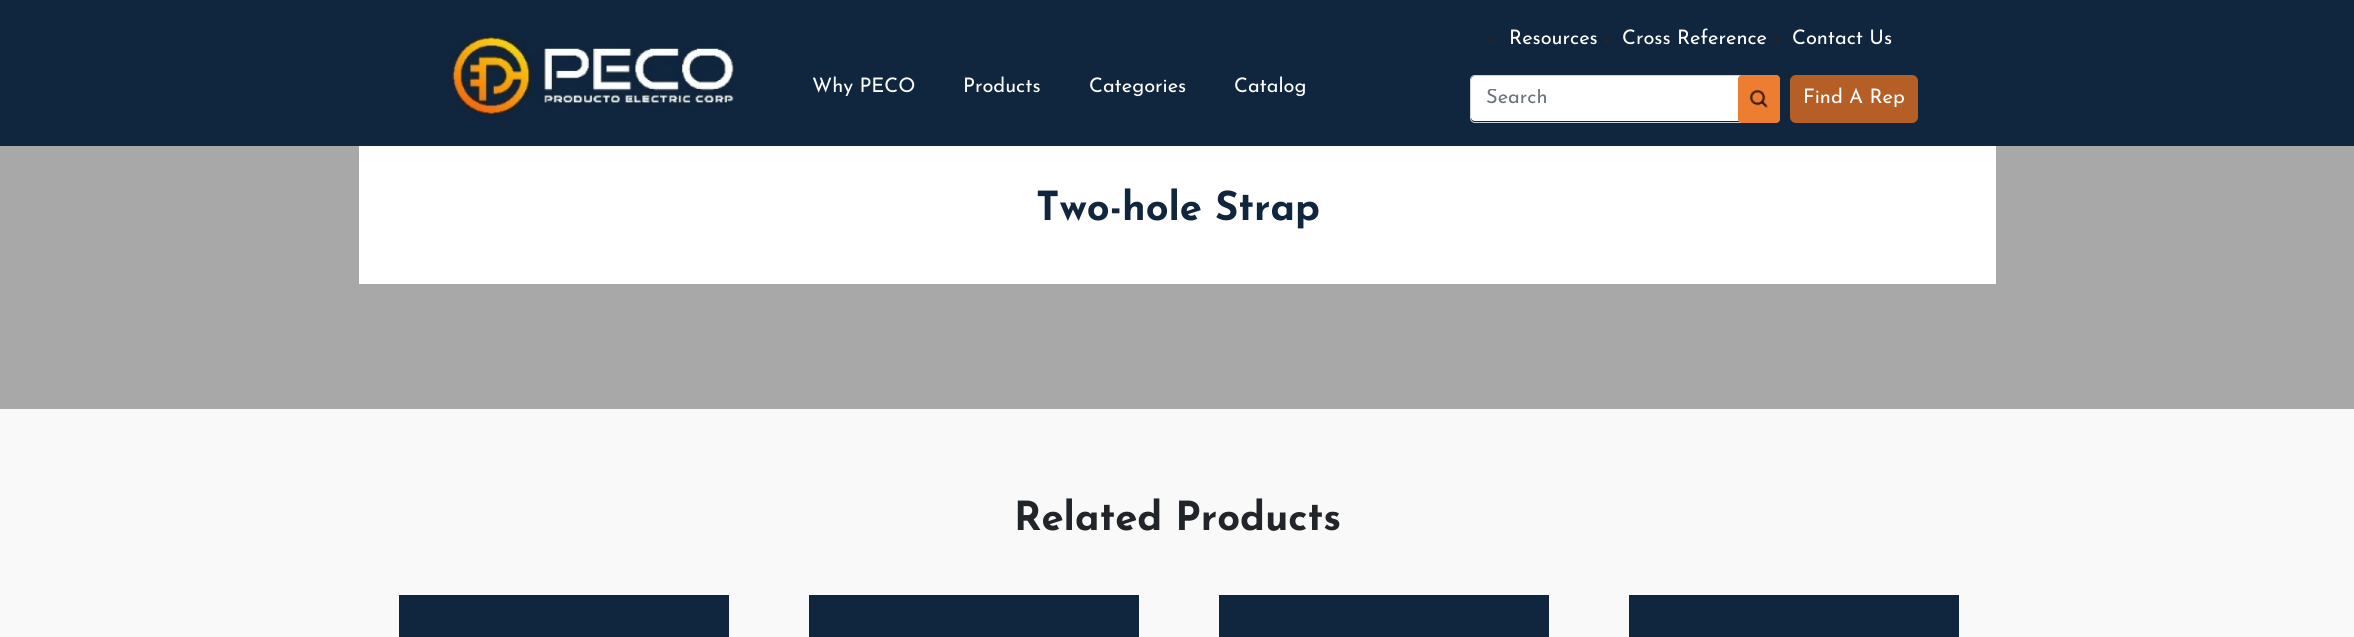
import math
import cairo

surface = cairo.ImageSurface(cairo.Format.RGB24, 2354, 637)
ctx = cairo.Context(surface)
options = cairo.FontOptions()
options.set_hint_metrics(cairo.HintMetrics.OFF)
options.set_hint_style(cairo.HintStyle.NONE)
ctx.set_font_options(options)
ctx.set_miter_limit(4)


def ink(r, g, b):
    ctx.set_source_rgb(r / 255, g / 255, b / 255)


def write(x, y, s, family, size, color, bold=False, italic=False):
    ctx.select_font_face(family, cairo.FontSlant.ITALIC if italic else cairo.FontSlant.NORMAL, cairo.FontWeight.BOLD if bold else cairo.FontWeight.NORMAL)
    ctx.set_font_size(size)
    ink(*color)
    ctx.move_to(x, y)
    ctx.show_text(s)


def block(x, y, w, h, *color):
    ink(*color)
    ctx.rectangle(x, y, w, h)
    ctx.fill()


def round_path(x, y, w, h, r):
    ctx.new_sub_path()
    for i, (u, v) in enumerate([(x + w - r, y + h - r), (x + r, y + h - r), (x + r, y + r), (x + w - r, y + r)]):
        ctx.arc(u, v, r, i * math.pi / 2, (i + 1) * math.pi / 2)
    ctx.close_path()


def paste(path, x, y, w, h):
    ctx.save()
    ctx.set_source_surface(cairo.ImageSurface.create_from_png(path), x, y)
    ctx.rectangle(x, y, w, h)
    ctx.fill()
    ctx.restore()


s1 = dict(family="Josefin Sans", size=20, color=(255, 255, 255))
s2 = dict(family="Josefin Sans", size=20, color=(108, 117, 125))
s3 = dict(family="Josefin Sans", size=40, color=(16, 38, 62), bold=True)
s4 = dict(family="Josefin Sans", size=40, color=(33, 37, 41), bold=True)

ink(168, 168, 168)
ctx.paint()
block(0, 0, 2354, 146, 16, 38, 62)
paste("pic1.png", 449, 31, 286, 89)
write(812, 92, "Why PECO", **s1)
write(963, 92, "Products", **s1)
write(1089, 92, "Categories", **s1)
write(1234, 92, "Catalog", **s1)
ink(33, 37, 41)
ctx.new_path()
ctx.arc(1492.5, 40.5, 2.5, 0, 2 * math.pi)
ctx.fill()
write(1509, 44, "Resources", **s1)
ink(33, 37, 41)
ctx.new_path()
ctx.arc(1606.5, 40.5, 2.5, 0, 2 * math.pi)
ctx.fill()
write(1622, 44, "Cross Reference", **s1)
ink(33, 37, 41)
ctx.new_path()
ctx.arc(1776.5, 40.5, 2.5, 0, 2 * math.pi)
ctx.fill()
write(1792, 44, "Contact Us", **s1)
round_path(1471, 76, 308, 45, 4)
ctx.fill()
round_path(1470.5, 75.5, 309, 47, 4.5)
ink(206, 212, 218)
ctx.set_line_width(1)
ctx.stroke()
ctx.save()
ctx.rectangle(1486, 89, 243, 20)
ctx.clip()
write(1486, 103, "Search", **s2)
ctx.restore()
ink(237, 125, 49)
round_path(1738, 75, 42, 48, 4)
ctx.fill()
paste("pic2.png", 1749, 89, 19, 19)
ink(181, 95, 38)
round_path(1790, 75, 128, 48, 6)
ctx.fill()
write(1803, 103, "Find A Rep", **s1)
block(359, 146, 1637, 138, 255, 255, 255)
write(1036, 220, "Two-hole Strap", **s3)
block(0, 409, 2354, 228, 249, 249, 249)
write(1014, 530, "Related Products", **s4)
block(399, 595, 330, 42, 16, 38, 62)
block(809, 595, 330, 42, 16, 38, 62)
block(1219, 595, 330, 42, 16, 38, 62)
block(1629, 595, 330, 42, 16, 38, 62)
surface.write_to_png("screenshot.png")
